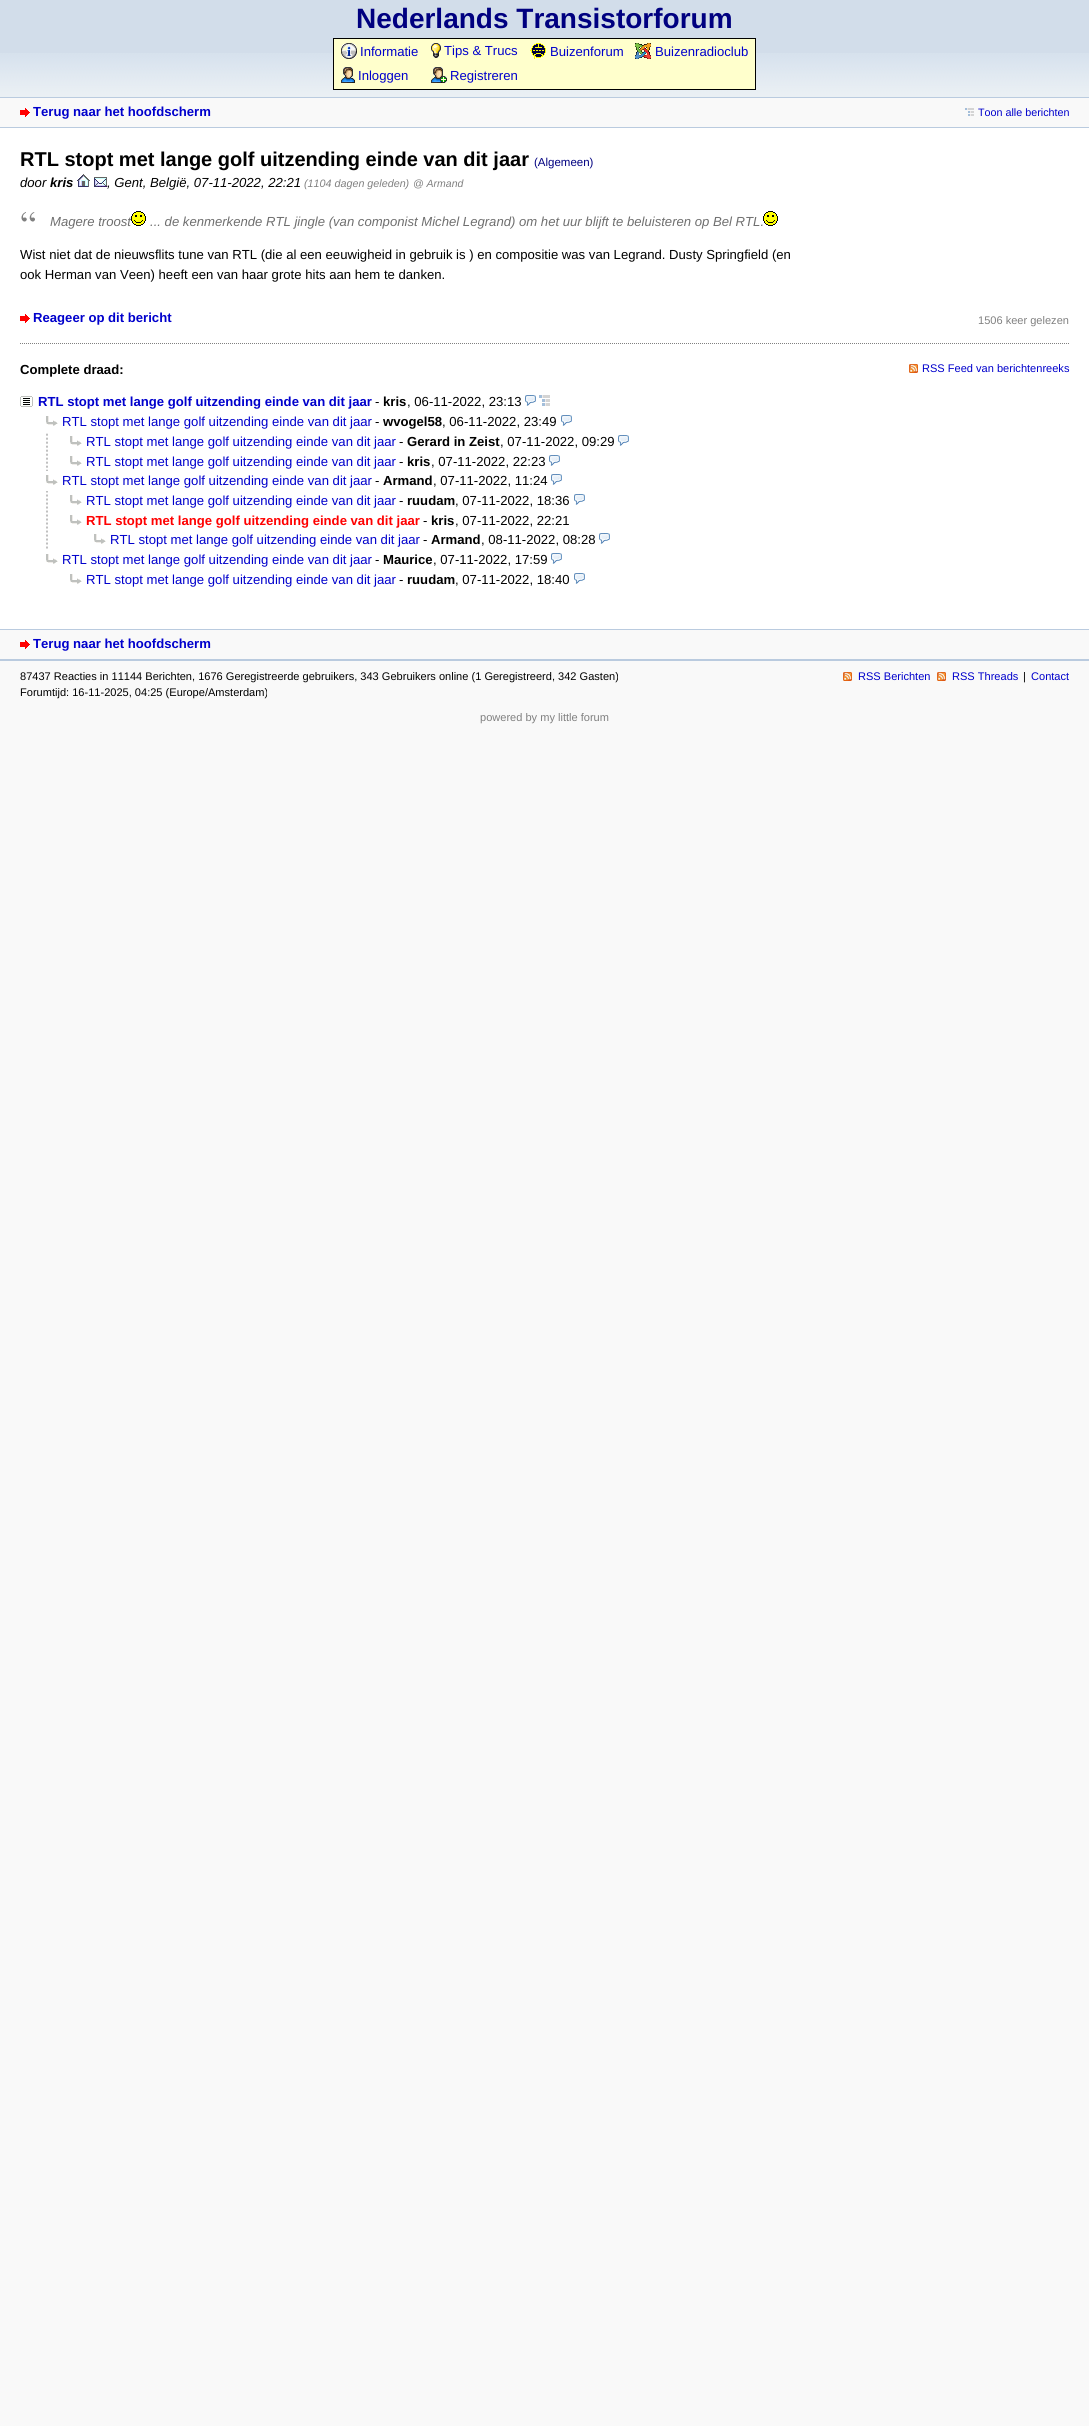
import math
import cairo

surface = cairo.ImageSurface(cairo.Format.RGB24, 1089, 2426)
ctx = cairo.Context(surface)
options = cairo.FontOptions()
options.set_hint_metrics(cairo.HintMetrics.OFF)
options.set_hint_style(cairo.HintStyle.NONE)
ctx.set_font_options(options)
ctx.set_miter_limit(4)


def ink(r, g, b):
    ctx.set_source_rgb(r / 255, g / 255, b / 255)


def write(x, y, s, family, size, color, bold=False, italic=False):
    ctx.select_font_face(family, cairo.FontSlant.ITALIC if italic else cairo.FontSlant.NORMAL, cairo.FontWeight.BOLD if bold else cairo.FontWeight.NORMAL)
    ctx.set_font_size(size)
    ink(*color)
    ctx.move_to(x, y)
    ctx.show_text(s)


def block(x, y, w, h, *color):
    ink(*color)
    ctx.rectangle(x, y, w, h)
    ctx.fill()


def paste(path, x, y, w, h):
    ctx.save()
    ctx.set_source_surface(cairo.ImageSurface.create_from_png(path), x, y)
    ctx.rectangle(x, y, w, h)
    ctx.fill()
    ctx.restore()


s1 = dict(family="Liberation Sans", size=28, color=(0, 0, 128), bold=True)
s2 = dict(family="Liberation Sans", size=13.12, color=(0, 0, 204))
s3 = dict(family="Liberation Sans", size=13.12, color=(0, 0, 204), bold=True)
s4 = dict(family="Liberation Sans", size=10.75, color=(0, 0, 204))
s5 = dict(family="Liberation Sans", size=20, color=(0, 0, 0), bold=True)
s6 = dict(family="Liberation Sans", size=11.5, color=(0, 0, 128))
s7 = dict(family="Liberation Sans", size=13.12, color=(0, 0, 0), italic=True)
s8 = dict(family="Liberation Sans", size=13.12, color=(0, 0, 0), bold=True, italic=True)
s9 = dict(family="Liberation Sans", size=10.75, color=(128, 128, 128), italic=True)
s10 = dict(family="Liberation Sans", size=10.5, color=(128, 128, 128), italic=True)
s11 = dict(family="Liberation Sans", size=13.12, color=(111, 111, 111), italic=True)
s12 = dict(family="Liberation Sans", size=13.12, color=(0, 0, 0))
s13 = dict(family="Liberation Sans", size=11.05, color=(128, 128, 128))
s14 = dict(family="Liberation Sans", size=13.12, color=(0, 0, 0), bold=True)
s15 = dict(family="Liberation Sans", size=11.05, color=(0, 0, 204))
s16 = dict(family="Liberation Sans", size=13.12, color=(255, 0, 0), bold=True)
s17 = dict(family="Liberation Sans", size=11.05, color=(0, 0, 0))

ink(249, 249, 249)
ctx.paint()
block(0, 0, 1089, 53, 210, 221, 234)
write(356, 28, "Nederlands Transistorforum", **s1)
paste("pic1.png", 0, 53, 1089, 44)
ink(255, 255, 204)
ctx.rectangle(333.5, 38.5, 422, 51)
ctx.fill_preserve()
ink(0, 0, 0)
ctx.set_line_width(1)
ctx.stroke()
paste("pic2.png", 341, 43, 16, 16)
write(360, 56, "Informatie", **s2)
paste("pic3.png", 431, 43, 10, 15)
write(444, 55, "Tips & Trucs", **s2)
paste("pic4.png", 530, 43, 16, 16)
write(550, 56, "Buizenforum", **s2)
paste("pic5.png", 635, 43, 16, 16)
write(655, 56, "Buizenradioclub", **s2)
paste("pic6.png", 341, 67, 14, 16)
write(358, 80, "Inloggen", **s2)
paste("pic7.png", 431, 67, 16, 16)
write(450, 80, "Registreren", **s2)
block(0, 97, 1089, 1, 186, 203, 223)
block(0, 127, 1089, 1, 186, 203, 223)
paste("pic8.png", 20, 108, 10, 9)
write(33, 116, "Terug naar het hoofdscherm", **s3)
paste("pic9.png", 965, 108, 9, 8)
write(978, 116, "Toon alle berichten", **s4)
block(0, 128, 1089, 501, 255, 255, 255)
write(20, 166, "RTL stopt met lange golf uitzending einde van dit jaar", **s5)
write(534, 166, "(Algemeen)", **s6)
write(20, 187, "door", **s7)
write(50, 187, "kris", **s8)
paste("pic10.png", 77, 174, 13, 13)
paste("pic11.png", 94, 177, 13, 10)
write(107, 187, ", Gent, België, 07-11-2022, 22:21", **s7)
write(304, 187, "(1104 dagen geleden)", **s9)
write(413, 187, "@ Armand", **s10)
paste("pic12.png", 21, 212, 14, 10)
write(50, 226, "Magere troost", **s11)
paste("pic13.png", 131, 211, 15, 15)
write(150, 226, "... de kenmerkende RTL jingle (van componist Michel Legrand) om het uur blijft te beluisteren op Bel RTL.", **s11)
paste("pic13.png", 763, 211, 15, 15)
write(20, 259, "Wist niet dat de nieuwsflits tune van RTL (die al een eeuwigheid in gebruik is ) en compositie was van Legrand. Dusty Springfield (en", **s12)
write(20, 279, "ook Herman van Veen) heeft een van haar grote hits aan hem te danken.", **s12)
paste("pic14.png", 20, 314, 10, 9)
write(33, 322, "Reageer op dit bericht", **s3)
write(978, 324, "1506 keer gelezen", **s13)
ctx.new_path()
ctx.move_to(20, 343.5)
ctx.line_to(1069, 343.5)
ctx.set_dash([1, 1])
ctx.stroke()
write(20, 374, "Complete draad:", **s14)
paste("pic15.png", 909, 364, 9, 9)
write(922, 372, "RSS Feed van berichtenreeks", **s15)
paste("pic16.png", 20, 396, 13, 11)
write(38, 406, "RTL stopt met lange golf uitzending einde van dit jaar", **s3)
write(375, 406, "-", **s12)
write(383, 406, "kris", **s14)
write(407, 406, ", 06-11-2022, 23:13", **s12)
paste("pic17.png", 525, 395, 11, 11)
paste("pic18.png", 539, 395, 11, 11)
paste("pic19.png", 46, 416, 12, 10)
write(62, 426, "RTL stopt met lange golf uitzending einde van dit jaar", **s2)
write(375, 426, "-", **s12)
write(383, 426, "wvogel58", **s14)
write(442, 426, ", 06-11-2022, 23:49", **s12)
paste("pic17.png", 561, 415, 11, 11)
paste("pic20.png", 46, 433, 2, 38)
paste("pic19.png", 70, 436, 12, 10)
write(86, 446, "RTL stopt met lange golf uitzending einde van dit jaar", **s2)
write(399, 446, "-", **s12)
write(407, 446, "Gerard in Zeist", **s14)
write(500, 446, ", 07-11-2022, 09:29", **s12)
paste("pic17.png", 618, 435, 11, 11)
paste("pic19.png", 70, 456, 12, 10)
write(86, 466, "RTL stopt met lange golf uitzending einde van dit jaar", **s2)
write(399, 466, "-", **s12)
write(407, 466, "kris", **s14)
write(431, 466, ", 07-11-2022, 22:23", **s12)
paste("pic17.png", 549, 455, 11, 11)
paste("pic19.png", 46, 475, 12, 10)
write(62, 485, "RTL stopt met lange golf uitzending einde van dit jaar", **s2)
write(375, 485, "-", **s12)
write(383, 485, "Armand", **s14)
write(433, 485, ", 07-11-2022, 11:24", **s12)
paste("pic17.png", 551, 474, 11, 11)
paste("pic21.png", 46, 491, 2, 58)
paste("pic19.png", 70, 495, 12, 10)
write(86, 505, "RTL stopt met lange golf uitzending einde van dit jaar", **s2)
write(399, 505, "-", **s12)
write(407, 505, "ruudam", **s14)
write(455, 505, ", 07-11-2022, 18:36", **s12)
paste("pic17.png", 574, 494, 11, 11)
paste("pic19.png", 70, 515, 12, 10)
write(86, 525, "RTL stopt met lange golf uitzending einde van dit jaar", **s16)
write(423, 525, "-", **s12)
write(431, 525, "kris", **s14)
write(455, 525, ", 07-11-2022, 22:21", **s12)
paste("pic19.png", 94, 534, 12, 10)
write(110, 544, "RTL stopt met lange golf uitzending einde van dit jaar", **s2)
write(423, 544, "-", **s12)
write(431, 544, "Armand", **s14)
write(481, 544, ", 08-11-2022, 08:28", **s12)
paste("pic17.png", 599, 533, 11, 11)
paste("pic19.png", 46, 554, 12, 10)
write(62, 564, "RTL stopt met lange golf uitzending einde van dit jaar", **s2)
write(375, 564, "-", **s12)
write(383, 564, "Maurice", **s14)
write(433, 564, ", 07-11-2022, 17:59", **s12)
paste("pic17.png", 551, 553, 11, 11)
paste("pic19.png", 70, 574, 12, 10)
write(86, 584, "RTL stopt met lange golf uitzending einde van dit jaar", **s2)
write(399, 584, "-", **s12)
write(407, 584, "ruudam", **s14)
write(455, 584, ", 07-11-2022, 18:40", **s12)
paste("pic17.png", 574, 573, 11, 11)
block(0, 629, 1089, 1, 186, 203, 223)
block(0, 659, 1089, 2, 186, 203, 223)
paste("pic8.png", 20, 640, 10, 9)
write(33, 648, "Terug naar het hoofdscherm", **s3)
write(20, 680, "87437 Reacties in 11144 Berichten, 1676 Geregistreerde gebruikers, 343 Gebruikers online (1 Geregistreerd, 342 Gasten)", **s17)
write(20, 696, "Forumtijd: 16-11-2025, 04:25 (Europe/Amsterdam)", **s17)
paste("pic15.png", 843, 672, 9, 9)
write(858, 680, "RSS Berichten", **s15)
paste("pic15.png", 937, 672, 9, 9)
write(952, 680, "RSS Threads", **s15)
write(1023, 680, "|", **s17)
write(1031, 680, "Contact", **s15)
write(480, 721, "powered by my little forum", **s13)
surface.write_to_png("screenshot.png")
